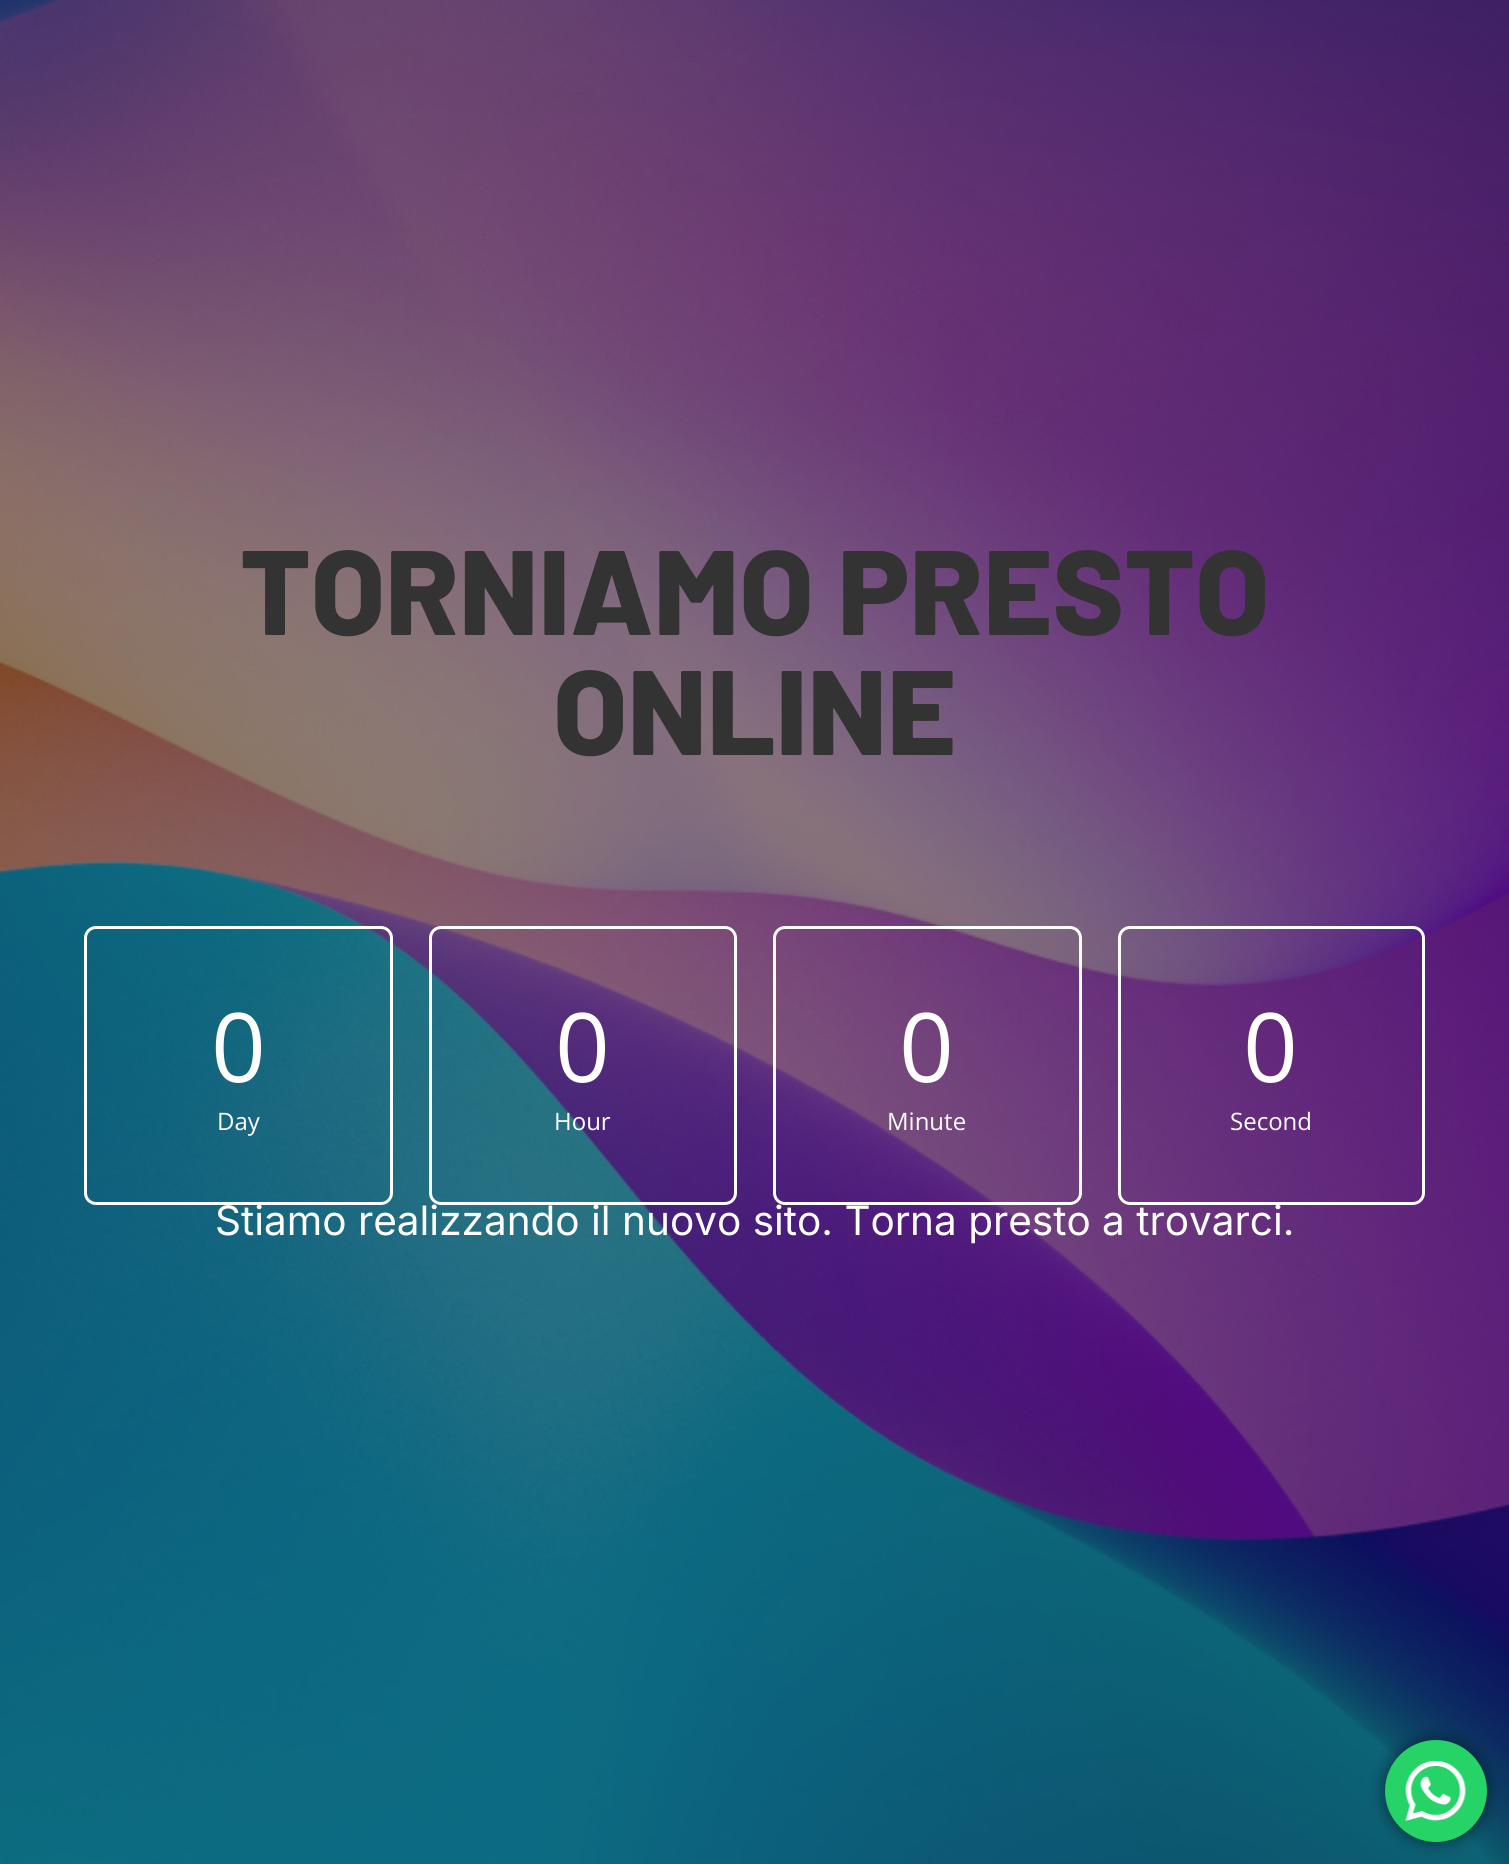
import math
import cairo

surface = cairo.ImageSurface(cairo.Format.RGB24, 1509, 1864)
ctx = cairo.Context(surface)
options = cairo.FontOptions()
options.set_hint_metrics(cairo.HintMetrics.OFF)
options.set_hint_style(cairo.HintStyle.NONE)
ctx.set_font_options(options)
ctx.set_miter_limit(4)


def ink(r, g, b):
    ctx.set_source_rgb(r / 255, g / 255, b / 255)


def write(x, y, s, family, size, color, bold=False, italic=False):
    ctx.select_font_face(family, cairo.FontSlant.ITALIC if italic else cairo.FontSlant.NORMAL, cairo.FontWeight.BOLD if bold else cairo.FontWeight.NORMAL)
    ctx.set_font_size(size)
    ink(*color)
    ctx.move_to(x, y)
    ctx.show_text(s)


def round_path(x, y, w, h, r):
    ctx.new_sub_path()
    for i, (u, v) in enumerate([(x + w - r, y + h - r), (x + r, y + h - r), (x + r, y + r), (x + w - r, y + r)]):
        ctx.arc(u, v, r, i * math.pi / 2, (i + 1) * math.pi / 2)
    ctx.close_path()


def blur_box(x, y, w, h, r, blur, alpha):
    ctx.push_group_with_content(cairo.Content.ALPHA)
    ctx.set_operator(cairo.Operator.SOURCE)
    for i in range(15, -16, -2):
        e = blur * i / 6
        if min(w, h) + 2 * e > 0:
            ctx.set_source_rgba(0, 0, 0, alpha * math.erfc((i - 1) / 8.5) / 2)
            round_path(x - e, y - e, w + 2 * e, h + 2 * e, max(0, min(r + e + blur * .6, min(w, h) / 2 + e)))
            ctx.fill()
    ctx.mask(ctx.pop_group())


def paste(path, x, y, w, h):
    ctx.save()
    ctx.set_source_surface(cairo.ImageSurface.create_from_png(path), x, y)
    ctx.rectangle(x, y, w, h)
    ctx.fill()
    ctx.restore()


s1 = dict(family="Barlow ExtraBold", size=120, color=(51, 51, 51))
s2 = dict(family="Open Sans", size=96, color=(255, 255, 255))
s3 = dict(family="Open Sans", size=24, color=(255, 255, 255))
s4 = dict(family="Inter", size=40.5, color=(255, 255, 255))

ink(25, 23, 23)
ctx.paint()
paste("pic1.png", 0, 0, 1509, 1864)
write(240, 635, "TORNIAMO PRESTO", **s1)
write(553, 755, "ONLINE", **s1)
round_path(85.5, 927.5, 306, 276, 10.5)
ink(255, 255, 255)
ctx.set_line_width(3)
ctx.stroke()
write(211, 1082, "0", **s2)
write(217, 1130, "Day", **s3)
round_path(430.5, 927.5, 305, 276, 10.5)
ctx.stroke()
write(555, 1082, "0", **s2)
write(554, 1130, "Hour", **s3)
round_path(774.5, 927.5, 306, 276, 10.5)
ctx.stroke()
write(899, 1082, "0", **s2)
write(887, 1130, "Minute", **s3)
round_path(1119.5, 927.5, 304, 276, 10.5)
ctx.stroke()
write(1243, 1082, "0", **s2)
write(1230, 1130, "Second", **s3)
write(215, 1235, "Stiamo realizzando il nuovo sito. Torna presto a trovarci.", **s4)
ink(0, 0, 0)
blur_box(1385, 1740, 102, 102, 51, 8, 0.5)
ink(37, 211, 102)
ctx.arc(1436, 1791, 51, 0, 2 * math.pi)
ctx.fill()
paste("pic2.png", 1405, 1761, 61, 60)
surface.write_to_png("screenshot.png")
